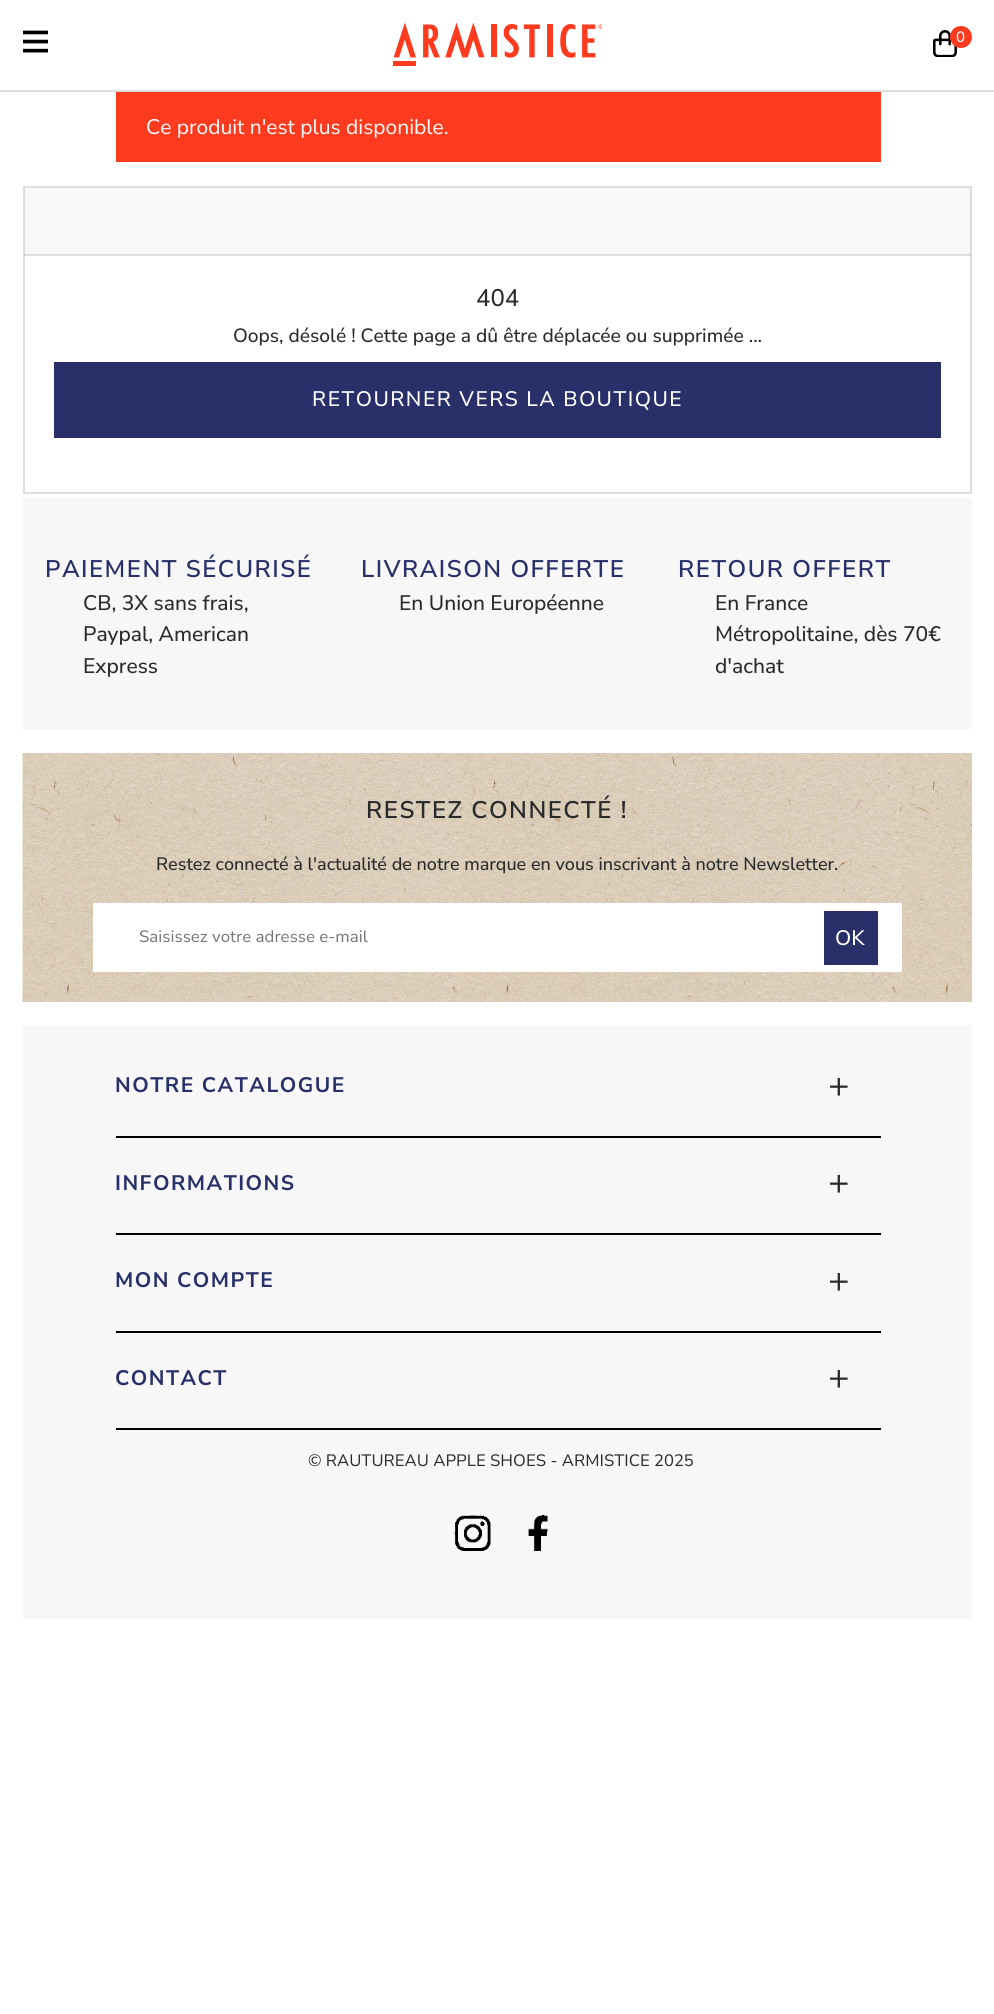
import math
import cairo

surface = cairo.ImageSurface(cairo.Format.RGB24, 994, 2014)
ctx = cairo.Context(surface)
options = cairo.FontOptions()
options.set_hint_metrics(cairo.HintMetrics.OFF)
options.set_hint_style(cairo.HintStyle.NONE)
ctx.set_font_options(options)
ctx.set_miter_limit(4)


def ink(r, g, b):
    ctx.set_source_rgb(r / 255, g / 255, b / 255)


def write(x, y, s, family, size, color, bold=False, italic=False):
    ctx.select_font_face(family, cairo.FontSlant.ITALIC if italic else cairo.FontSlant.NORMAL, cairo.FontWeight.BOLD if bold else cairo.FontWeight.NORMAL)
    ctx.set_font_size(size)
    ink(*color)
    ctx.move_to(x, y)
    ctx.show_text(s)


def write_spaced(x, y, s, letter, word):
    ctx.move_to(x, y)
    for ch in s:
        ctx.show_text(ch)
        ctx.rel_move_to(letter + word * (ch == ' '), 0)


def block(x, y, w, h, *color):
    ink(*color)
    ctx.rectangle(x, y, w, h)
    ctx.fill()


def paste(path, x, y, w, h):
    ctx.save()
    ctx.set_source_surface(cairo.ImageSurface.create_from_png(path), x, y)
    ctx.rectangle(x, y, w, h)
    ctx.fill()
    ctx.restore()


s1 = dict(family="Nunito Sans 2", size=21, color=(255, 255, 255))
s2 = dict(family="Nunito Sans Medium", size=24, color=(42, 42, 42))
s3 = dict(family="Nunito Sans Medium", size=19.2, color=(42, 42, 42))
s4 = dict(family="Nunito Sans Medium", size=21, color=(42, 42, 42))
s5 = dict(family="Nunito Sans Medium", size=18, color=(42, 42, 42))
s6 = dict(family="Nunito Sans", size=16.5, color=(117, 117, 117))
s7 = dict(family="Nunito Sans Medium", size=21, color=(255, 255, 255))
s8 = dict(family="Nunito Sans 2", size=36, color=(42, 42, 42))
s9 = dict(family="Nunito Sans", size=16.5, color=(42, 42, 42))

ink(255, 255, 255)
ctx.paint()
block(0, 90, 994, 2, 221, 221, 221)
paste("pic1.png", 23, 30, 25, 23)
paste("pic2.png", 393, 23, 209, 43)
paste("pic3.png", 933, 30, 24, 27)
ink(254, 59, 31)
ctx.arc(961, 37, 11, 0, 2 * math.pi)
ctx.fill()
ctx.select_font_face("Nunito Sans Medium")
ctx.set_font_size(15)
ink(255, 255, 255)
write_spaced(956, 42, "0", 1, 0)
block(116, 92, 765, 70, 254, 59, 31)
write(146, 134, "Ce produit n'est plus disponible.", **s1)
ctx.rectangle(24, 187, 947, 306)
ink(223, 223, 223)
ctx.stroke()
ctx.set_source_rgba(0, 0, 0, 0.03)
ctx.rectangle(24, 188, 947, 67)
ctx.fill()
ctx.set_source_rgba(0, 0, 0, 0.12)
ctx.rectangle(24, 254, 947, 2)
ctx.fill()
write(476, 306, "404", **s2)
write(233, 342, "Oops, désolé ! Cette page a dû être déplacée ou supprimée ...", **s3)
block(54, 362, 887, 76, 41, 48, 105)
ctx.set_font_size(21)
ink(255, 255, 255)
write_spaced(312, 406, "RETOURNER VERS LA BOUTIQUE", 1.5, 0)
block(23, 498, 949, 231, 247, 247, 247)
ctx.select_font_face("Nunito Sans SemiBold")
ctx.set_font_size(24)
ink(41, 48, 105)
write_spaced(45, 577, "PAIEMENT SÉCURISÉ", 1.5, 0)
write(83, 610, "CB, 3X sans frais,", **s4)
write(83, 641, "Paypal, American", **s4)
write(83, 673, "Express", **s4)
ctx.select_font_face("Nunito Sans SemiBold")
ctx.set_font_size(24)
ink(41, 48, 105)
write_spaced(361, 577, "LIVRAISON OFFERTE", 1.5, 0)
write(399, 610, "En Union Européenne", **s4)
ctx.select_font_face("Nunito Sans SemiBold")
ctx.set_font_size(24)
ink(41, 48, 105)
write_spaced(678, 577, "RETOUR OFFERT", 1.5, 0)
write(715, 610, "En France", **s4)
write(715, 641, "Métropolitaine, dès 70€", **s4)
write(715, 673, "d'achat", **s4)
paste("pic4.png", 22, 753, 950, 249)
ctx.select_font_face("Nunito Sans SemiBold")
ctx.set_font_size(24)
write_spaced(366, 818, "RESTEZ CONNECTÉ !", 1.5, 0)
write(156, 870, "Restez connecté à l'actualité de notre marque en vous inscrivant à notre Newsletter.", **s5)
block(93, 903, 809, 69, 255, 255, 255)
write(139, 942, "Saisissez votre adresse e-mail", **s6)
block(824, 911, 54, 54, 41, 48, 105)
write(835, 945, "OK", **s7)
block(23, 1025, 949, 594, 247, 247, 247)
block(116, 1136, 765, 2, 0, 0, 0)
ctx.select_font_face("Nunito Sans", cairo.FontSlant.NORMAL, cairo.FontWeight.BOLD)
ink(41, 48, 105)
write_spaced(115, 1092, "NOTRE CATALOGUE", 1.5, 0)
write(828, 1097, "+", **s8)
block(116, 1233, 765, 2, 0, 0, 0)
ctx.select_font_face("Nunito Sans", cairo.FontSlant.NORMAL, cairo.FontWeight.BOLD)
ctx.set_font_size(21)
ink(41, 48, 105)
write_spaced(115, 1190, "INFORMATIONS", 1.5, 0)
write(828, 1194, "+", **s8)
block(116, 1331, 765, 2, 0, 0, 0)
ctx.select_font_face("Nunito Sans", cairo.FontSlant.NORMAL, cairo.FontWeight.BOLD)
ctx.set_font_size(21)
ink(41, 48, 105)
write_spaced(115, 1287, "MON COMPTE", 1.5, 0)
write(828, 1292, "+", **s8)
block(116, 1428, 765, 2, 0, 0, 0)
ctx.select_font_face("Nunito Sans", cairo.FontSlant.NORMAL, cairo.FontWeight.BOLD)
ctx.set_font_size(21)
ink(41, 48, 105)
write_spaced(115, 1385, "CONTACT", 1.5, 0)
write(828, 1389, "+", **s8)
write(308, 1466, "© RAUTUREAU APPLE SHOES - ARMISTICE 2025", **s9)
paste("pic5.png", 454, 1515, 37, 36)
paste("pic6.png", 528, 1515, 20, 36)
surface.write_to_png("screenshot.png")
